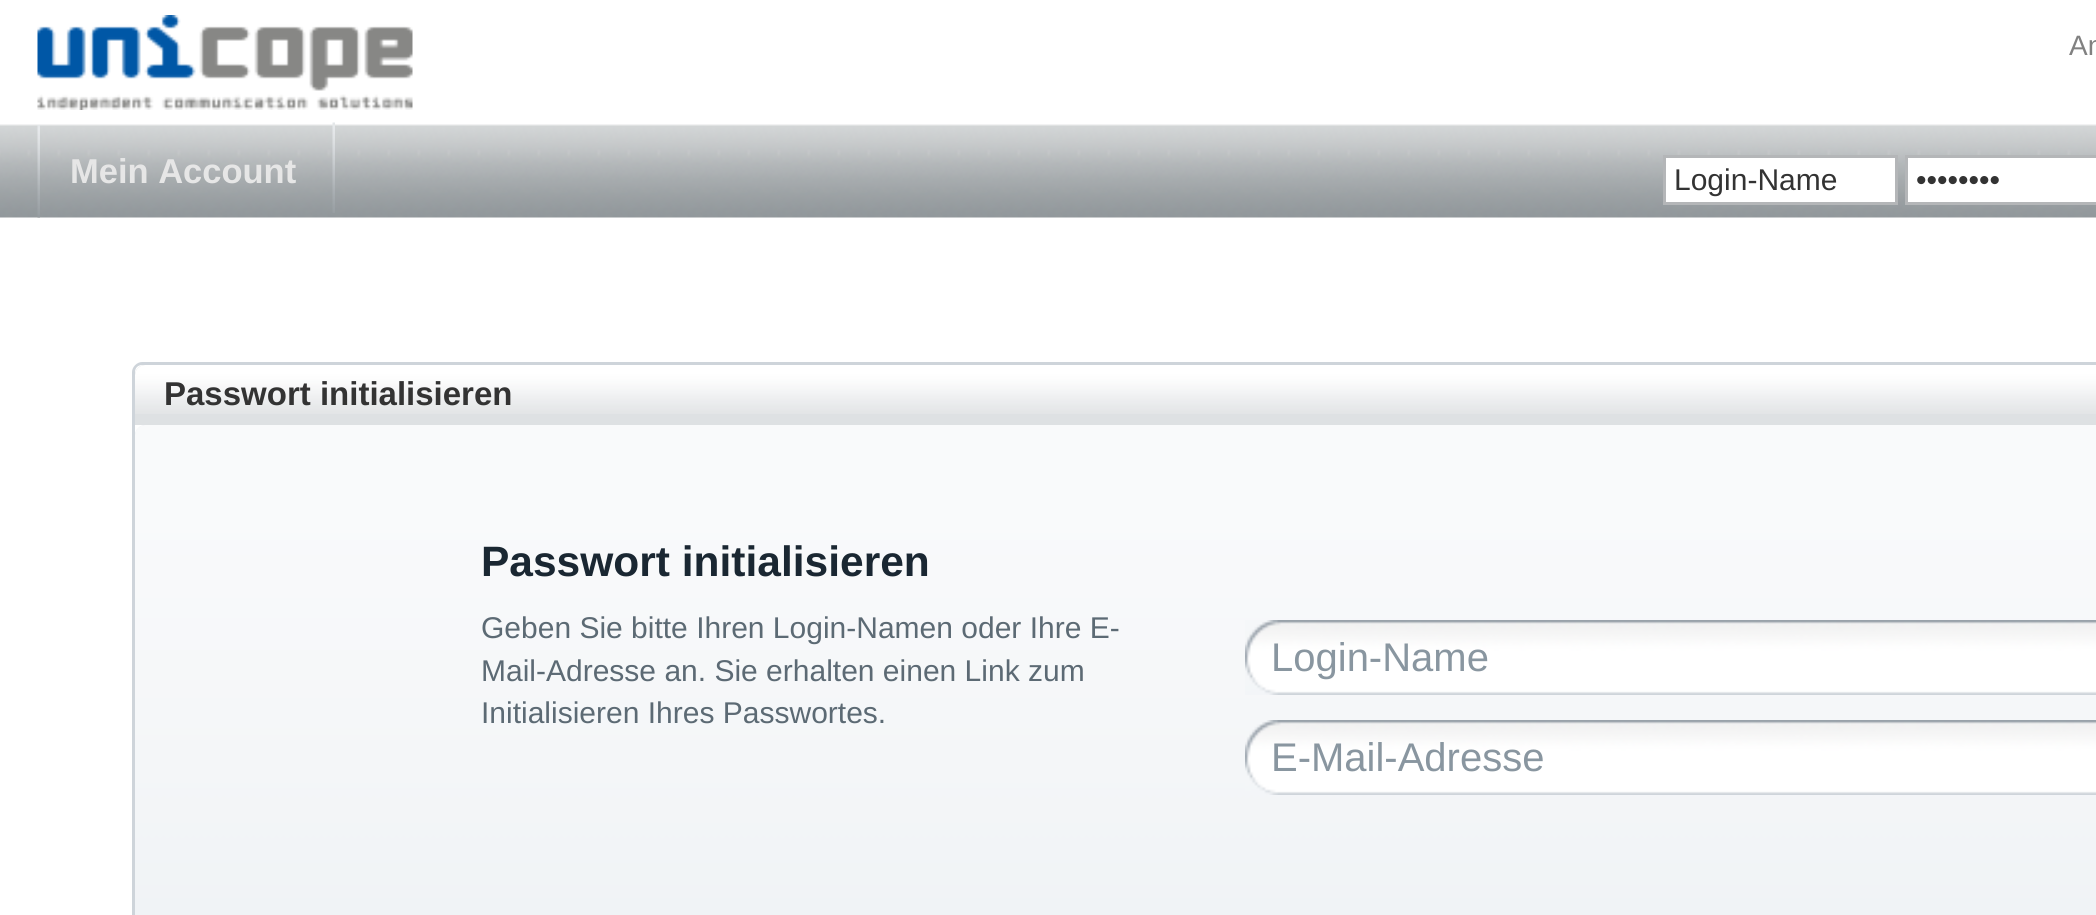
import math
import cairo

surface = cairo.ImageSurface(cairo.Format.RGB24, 2096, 915)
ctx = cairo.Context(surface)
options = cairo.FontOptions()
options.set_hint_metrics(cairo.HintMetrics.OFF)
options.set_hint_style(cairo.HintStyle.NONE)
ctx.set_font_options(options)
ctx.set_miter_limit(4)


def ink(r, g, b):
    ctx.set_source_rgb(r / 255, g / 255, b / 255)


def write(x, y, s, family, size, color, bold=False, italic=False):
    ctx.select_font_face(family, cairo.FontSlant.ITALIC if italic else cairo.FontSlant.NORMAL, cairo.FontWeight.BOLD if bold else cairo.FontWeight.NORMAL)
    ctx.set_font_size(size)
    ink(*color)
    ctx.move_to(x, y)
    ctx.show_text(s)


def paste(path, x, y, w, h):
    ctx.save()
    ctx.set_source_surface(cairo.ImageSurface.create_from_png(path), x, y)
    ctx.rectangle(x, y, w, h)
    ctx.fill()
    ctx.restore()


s1 = dict(family="Liberation Sans", size=28, color=(129, 129, 129))
s2 = dict(family="Liberation Sans", size=34.5, color=(230, 230, 230), bold=True)
s3 = dict(family="Liberation Sans", size=30, color=(51, 51, 51))
s4 = dict(family="Liberation Sans", size=33, color=(51, 51, 51), bold=True)
s5 = dict(family="Liberation Sans", size=42.5, color=(26, 39, 50), bold=True)
s6 = dict(family="Liberation Sans", size=30, color=(92, 106, 116))
s7 = dict(family="Liberation Sans", size=40, color=(137, 150, 160))

ink(255, 255, 255)
ctx.paint()
paste("pic1.png", 0, 124, 2096, 94)
paste("pic2.png", 37, 15, 376, 95)
write(2069, 55, "An", **s1)
paste("pic3.png", 332, 122, 3, 91)
paste("pic4.png", 37, 125, 3, 93)
write(70, 183, "Mein Account", **s2)
ink(255, 255, 255)
ctx.rectangle(1664.5, 156.5, 232, 47)
ctx.fill_preserve()
ink(180, 182, 184)
ctx.set_line_width(3)
ctx.stroke()
write(1674, 190, "Login-Name", **s3)
ink(255, 255, 255)
ctx.rectangle(1906.5, 156.5, 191, 47)
ctx.fill_preserve()
ink(180, 182, 184)
ctx.stroke()
write(1916, 190, "••••••••", **s3)
ink(206, 212, 218)
ctx.set_fill_rule(cairo.FillRule.EVEN_ODD)
ctx.new_path()
ctx.move_to(142, 362)
ctx.line_to(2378, 362)
ctx.curve_to(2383, 362, 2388, 367, 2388, 372)
ctx.line_to(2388, 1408)
ctx.curve_to(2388, 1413, 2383, 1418, 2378, 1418)
ctx.line_to(142, 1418)
ctx.curve_to(137, 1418, 132, 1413, 132, 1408)
ctx.line_to(132, 372)
ctx.curve_to(132, 367, 137, 362, 142, 362)
ctx.close_path()
ctx.move_to(142, 365)
ctx.line_to(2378, 365)
ctx.curve_to(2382, 365, 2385, 368, 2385, 372)
ctx.line_to(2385, 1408)
ctx.curve_to(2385, 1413, 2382, 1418, 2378, 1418)
ctx.line_to(142, 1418)
ctx.curve_to(138, 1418, 135, 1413, 135, 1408)
ctx.line_to(135, 372)
ctx.curve_to(135, 368, 138, 365, 142, 365)
ctx.close_path()
ctx.fill()
ink(222, 225, 227)
ctx.new_path()
ctx.move_to(145, 365)
ctx.line_to(2096, 365)
ctx.curve_to(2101.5, 365, 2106, 369.5, 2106, 375)
ctx.line_to(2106, 425)
ctx.line_to(135, 425)
ctx.line_to(135, 375)
ctx.curve_to(135, 369.5, 139.5, 365, 145, 365)
ctx.close_path()
ctx.fill()
paste("pic5.png", 135, 365, 1961, 49)
write(164, 405, "Passwort initialisieren", **s4)
ink(232, 236, 241)
ctx.set_fill_rule(cairo.FillRule.WINDING)
ctx.new_path()
ctx.move_to(145, 425)
ctx.curve_to(140, 425, 135, 430, 135, 435)
ctx.line_to(135, 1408)
ctx.curve_to(135, 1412, 138, 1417, 142, 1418)
ctx.line_to(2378, 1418)
ctx.line_to(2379, 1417)
ctx.curve_to(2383, 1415, 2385, 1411, 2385, 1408)
ctx.line_to(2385, 435)
ctx.curve_to(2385, 430, 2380, 425, 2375, 425)
ctx.close_path()
ctx.fill()
paste("pic6.png", 135, 425, 1961, 490)
write(481, 576, "Passwort initialisieren", **s5)
write(481, 638, "Geben Sie bitte Ihren Login-Namen oder Ihre E-", **s6)
write(481, 681, "Mail-Adresse an. Sie erhalten einen Link zum", **s6)
write(481, 723, "Initialisieren Ihres Passwortes.", **s6)
paste("pic7.png", 1245, 620, 851, 75)
write(1271, 671, "Login-Name", **s7)
paste("pic7.png", 1245, 720, 851, 75)
write(1271, 771, "E-Mail-Adresse", **s7)
surface.write_to_png("screenshot.png")
